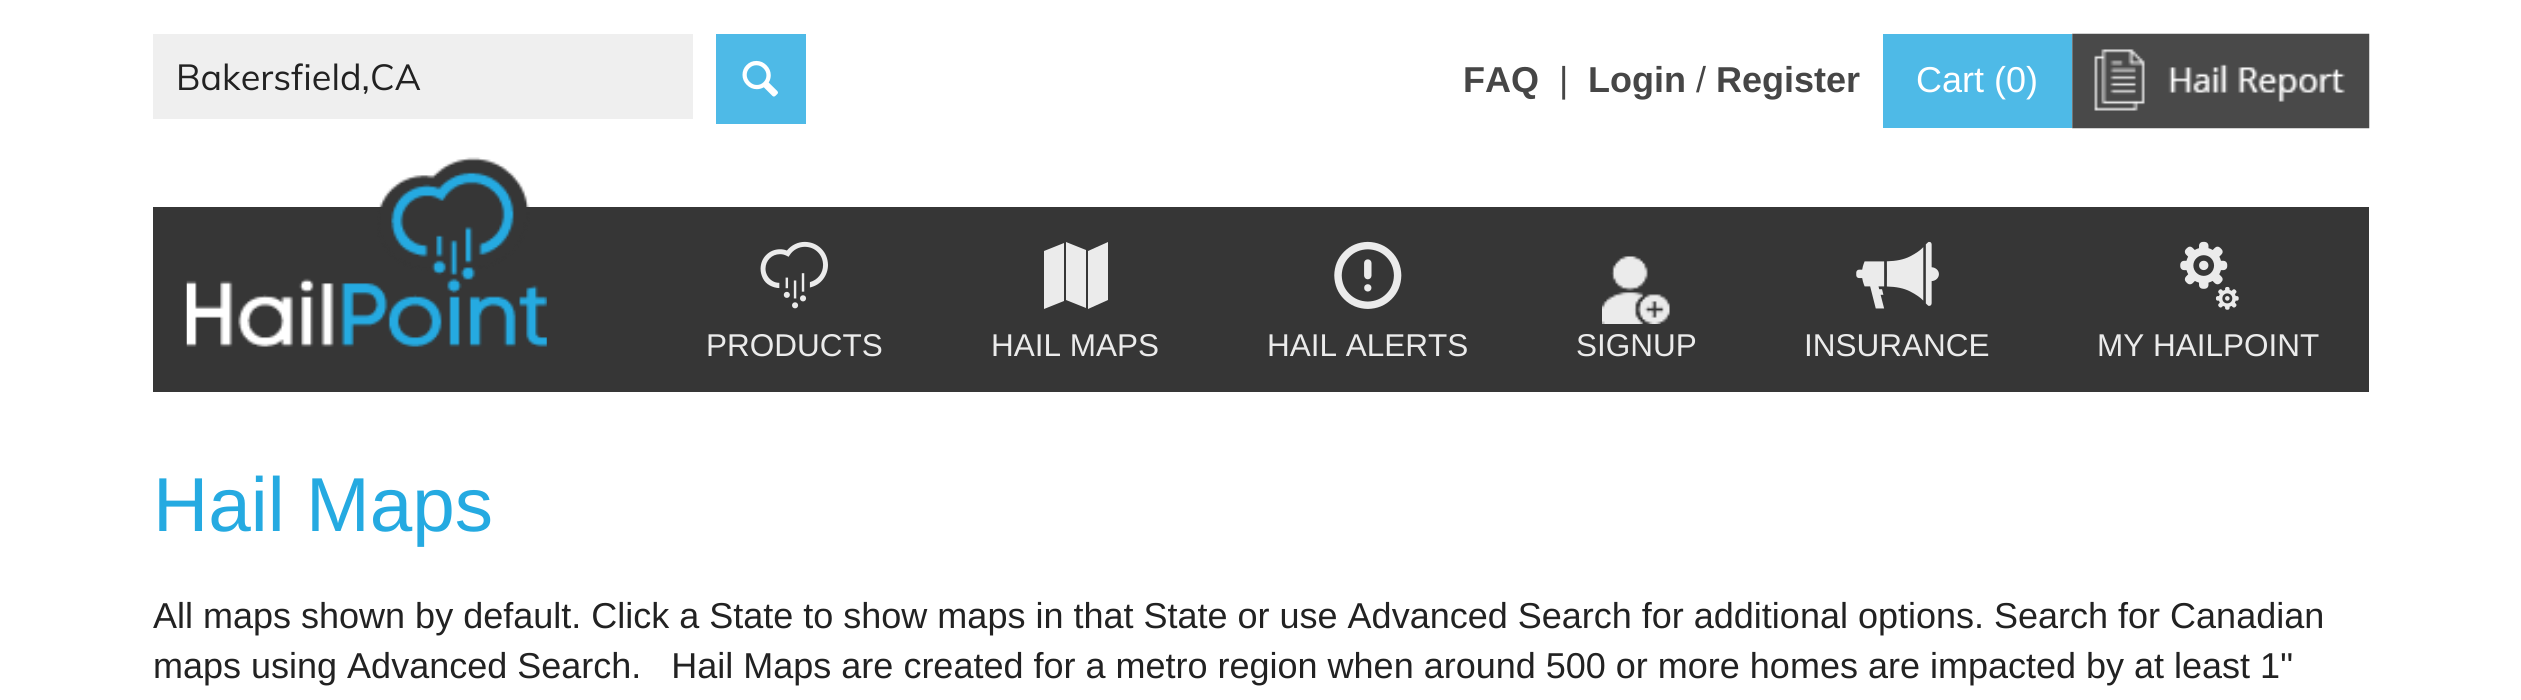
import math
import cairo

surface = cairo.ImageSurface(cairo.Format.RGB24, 2521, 700)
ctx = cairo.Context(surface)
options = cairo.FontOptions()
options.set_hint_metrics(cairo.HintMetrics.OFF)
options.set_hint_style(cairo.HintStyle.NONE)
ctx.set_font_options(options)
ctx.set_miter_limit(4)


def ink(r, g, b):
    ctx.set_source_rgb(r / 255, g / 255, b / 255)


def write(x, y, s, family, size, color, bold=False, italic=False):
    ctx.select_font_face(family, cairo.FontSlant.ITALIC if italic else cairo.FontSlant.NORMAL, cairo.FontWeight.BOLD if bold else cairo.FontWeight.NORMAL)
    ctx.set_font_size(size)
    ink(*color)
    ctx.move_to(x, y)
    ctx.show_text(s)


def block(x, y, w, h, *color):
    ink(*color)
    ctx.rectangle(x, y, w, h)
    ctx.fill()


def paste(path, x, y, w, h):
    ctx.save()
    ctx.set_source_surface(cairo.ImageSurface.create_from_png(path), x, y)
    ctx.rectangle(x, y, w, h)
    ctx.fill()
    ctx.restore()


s1 = dict(family="Muli", size=36, color=(34, 34, 34))
s2 = dict(family="Liberation Sans", size=36, color=(70, 70, 70), bold=True)
s3 = dict(family="Liberation Sans", size=36, color=(70, 70, 70))
s4 = dict(family="Liberation Sans", size=36, color=(255, 255, 255))
s5 = dict(family="Liberation Sans", size=31.5, color=(235, 235, 235))
s6 = dict(family="Liberation Sans", size=76.5, color=(37, 170, 225))
s7 = dict(family="Liberation Sans", size=36, color=(34, 34, 34))

ink(255, 255, 255)
ctx.paint()
block(153, 34, 540, 85, 239, 239, 239)
write(176, 90, "Bakersfield,CA", **s1)
block(716, 34, 90, 90, 78, 186, 231)
paste("pic1.png", 742, 60, 36, 37)
write(1463, 92, "FAQ", **s2)
write(1559, 92, "|", **s3)
write(1588, 92, "Login", **s2)
write(1696, 92, "/", **s3)
write(1716, 92, "Register", **s2)
block(1883, 34, 189, 94, 78, 186, 231)
write(1916, 92, "Cart (0)", **s4)
paste("pic2.png", 2072, 33, 298, 96)
block(153, 207, 2216, 185, 54, 54, 54)
paste("pic3.png", 186, 157, 361, 190)
paste("pic4.png", 760, 241, 68, 68)
write(706, 356, "PRODUCTS", **s5)
ctx.new_path()
ctx.move_to(1088, 309)
ctx.line_to(1108, 300)
ctx.line_to(1108, 242)
ctx.line_to(1088, 251)
ctx.close_path()
ctx.move_to(1066, 300)
ctx.line_to(1086, 308)
ctx.line_to(1086, 250)
ctx.line_to(1066, 242)
ctx.close_path()
ctx.move_to(1044, 251)
ctx.line_to(1044, 309)
ctx.line_to(1064, 301)
ctx.line_to(1064, 243)
ctx.close_path()
ctx.fill()
write(991, 356, "HAIL MAPS", **s5)
paste("pic5.png", 1334, 241, 68, 68)
write(1267, 356, "HAIL ALERTS", **s5)
paste("pic6.png", 1602, 256, 68, 68)
write(1576, 356, "SIGNUP", **s5)
paste("pic7.png", 1856, 241, 83, 68)
write(1804, 356, "INSURANCE", **s5)
paste("pic8.png", 2180, 241, 59, 69)
write(2097, 356, "MY HAILPOINT", **s5)
write(153, 531, "Hail Maps", **s6)
write(153, 628, "All maps shown by default. Click a State to show maps in that State or use Advanced Search for additional options. Search for Canadian", **s7)
write(153, 678, "maps using Advanced Search.   Hail Maps are created for a metro region when around 500 or more homes are impacted by at least 1\"", **s7)
surface.write_to_png("screenshot.png")
